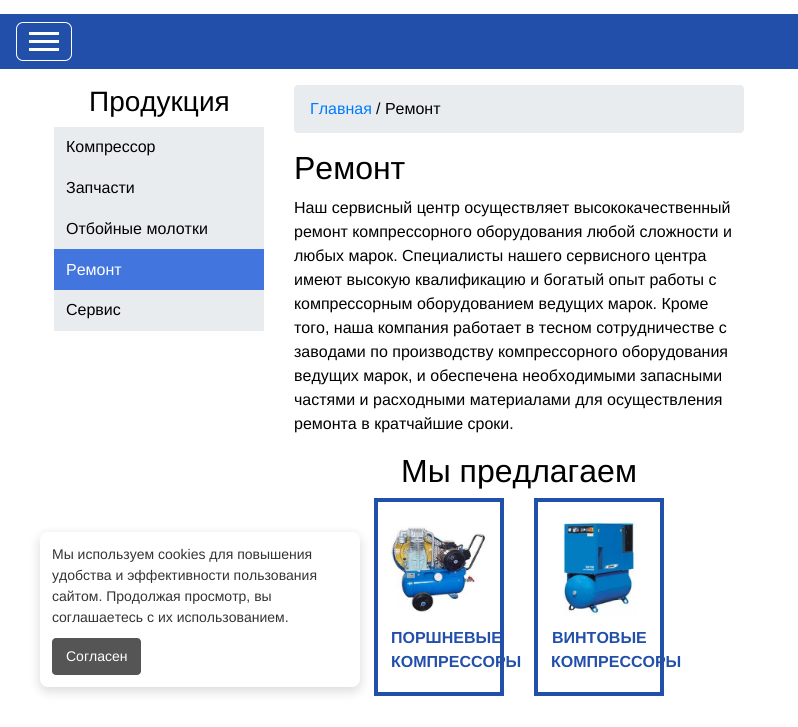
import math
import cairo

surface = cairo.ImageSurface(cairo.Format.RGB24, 798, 727)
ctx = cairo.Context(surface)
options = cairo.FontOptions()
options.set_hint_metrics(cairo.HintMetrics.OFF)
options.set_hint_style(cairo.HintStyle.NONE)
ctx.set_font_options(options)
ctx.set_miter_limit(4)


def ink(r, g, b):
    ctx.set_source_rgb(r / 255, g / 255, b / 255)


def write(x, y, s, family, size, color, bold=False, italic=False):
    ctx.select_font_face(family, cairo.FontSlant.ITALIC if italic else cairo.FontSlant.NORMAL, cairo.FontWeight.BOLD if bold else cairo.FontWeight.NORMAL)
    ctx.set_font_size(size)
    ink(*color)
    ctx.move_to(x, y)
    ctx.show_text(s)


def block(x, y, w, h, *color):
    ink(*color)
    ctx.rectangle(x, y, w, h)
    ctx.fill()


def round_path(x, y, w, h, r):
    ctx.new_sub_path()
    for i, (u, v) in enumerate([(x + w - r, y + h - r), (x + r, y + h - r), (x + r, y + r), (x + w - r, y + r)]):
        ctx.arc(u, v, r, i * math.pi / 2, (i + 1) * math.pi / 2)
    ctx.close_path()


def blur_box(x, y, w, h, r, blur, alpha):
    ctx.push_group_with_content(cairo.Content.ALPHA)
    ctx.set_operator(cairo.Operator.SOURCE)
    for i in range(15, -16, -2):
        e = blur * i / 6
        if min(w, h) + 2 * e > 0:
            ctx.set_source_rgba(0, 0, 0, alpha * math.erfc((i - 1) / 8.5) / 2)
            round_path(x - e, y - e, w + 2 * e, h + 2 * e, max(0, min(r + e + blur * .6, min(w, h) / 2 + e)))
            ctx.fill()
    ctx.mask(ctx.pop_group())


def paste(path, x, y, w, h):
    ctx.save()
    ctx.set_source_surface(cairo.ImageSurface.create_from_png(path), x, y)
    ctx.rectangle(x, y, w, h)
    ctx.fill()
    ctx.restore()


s1 = dict(family="Liberation Sans", size=28, color=(0, 0, 0))
s2 = dict(family="Liberation Sans", size=16, color=(0, 0, 0))
s3 = dict(family="Liberation Sans", size=16, color=(255, 255, 255))
s4 = dict(family="Liberation Sans", size=16, color=(0, 123, 255))
s5 = dict(family="Liberation Sans", size=32, color=(0, 0, 0))
s6 = dict(family="Liberation Sans", size=16, color=(34, 79, 169), bold=True)
s7 = dict(family="Liberation Sans", size=14, color=(51, 51, 51))
s8 = dict(family="Liberation Sans", size=14, color=(255, 255, 255))

ink(255, 255, 255)
ctx.paint()
block(0, 14, 798, 55, 34, 79, 169)
round_path(16.5, 22.5, 55, 38, 6.5)
ink(255, 255, 255)
ctx.set_line_width(1)
ctx.stroke()
block(29, 32, 30, 3, 255, 255, 255)
block(29, 40, 30, 3, 255, 255, 255)
block(29, 48, 30, 3, 255, 255, 255)
write(89, 111, "Продукция", **s1)
block(54, 127, 210, 122, 233, 236, 239)
write(66, 152, "Компрессор", **s2)
write(66, 193, "Запчасти", **s2)
write(66, 234, "Отбойные молотки", **s2)
block(54, 249, 210, 41, 66, 118, 222)
write(66, 275, "Ремонт", **s3)
block(54, 290, 210, 41, 233, 236, 239)
write(66, 315, "Сервис", **s2)
ink(233, 236, 239)
round_path(294, 85, 450, 48, 4)
ctx.fill()
write(310, 114, "Главная", **s4)
write(376, 114, "/ Ремонт", **s2)
write(294, 179, "Ремонт", **s5)
write(294, 213, "Наш сервисный центр осуществляет высококачественный", **s2)
write(294, 237, "ремонт компрессорного оборудования любой сложности и", **s2)
write(294, 261, "любых марок. Специалисты нашего сервисного центра", **s2)
write(294, 285, "имеют высокую квалификацию и богатый опыт работы с", **s2)
write(294, 309, "компрессорным оборудованием ведущих марок. Кроме", **s2)
write(294, 333, "того, наша компания работает в тесном сотрудничестве с", **s2)
write(294, 357, "заводами по производству компрессорного оборудования", **s2)
write(294, 381, "ведущих марок, и обеспечена необходимыми запасными", **s2)
write(294, 405, "частями и расходными материалами для осуществления", **s2)
write(294, 429, "ремонта в кратчайшие сроки.", **s2)
write(401, 482, "Мы предлагаем", **s5)
ctx.rectangle(376, 500, 126, 194)
ink(34, 79, 169)
ctx.set_line_width(4)
ctx.stroke()
paste("pic1.png", 391, 526, 96, 86)
write(391, 643, "ПОРШНЕВЫЕ", **s6)
write(391, 667, "КОМПРЕССОРЫ", **s6)
ctx.rectangle(536, 500, 126, 194)
ctx.stroke()
paste("pic2.png", 563, 520, 74, 96)
write(552, 643, "ВИНТОВЫЕ", **s6)
write(551, 667, "КОМПРЕССОРЫ", **s6)
ink(0, 0, 0)
blur_box(40, 536, 320, 155, 8, 6, 0.15)
ink(255, 255, 255)
round_path(40, 532, 320, 155, 8)
ctx.fill()
write(52, 559, "Мы используем cookies для повышения", **s7)
write(52, 580, "удобства и эффективности пользования", **s7)
write(52, 601, "сайтом. Продолжая просмотр, вы", **s7)
write(52, 622, "соглашаетесь с их использованием.", **s7)
ink(85, 85, 85)
round_path(52, 638, 89, 37, 4)
ctx.fill()
write(66, 661, "Согласен", **s8)
surface.write_to_png("screenshot.png")
